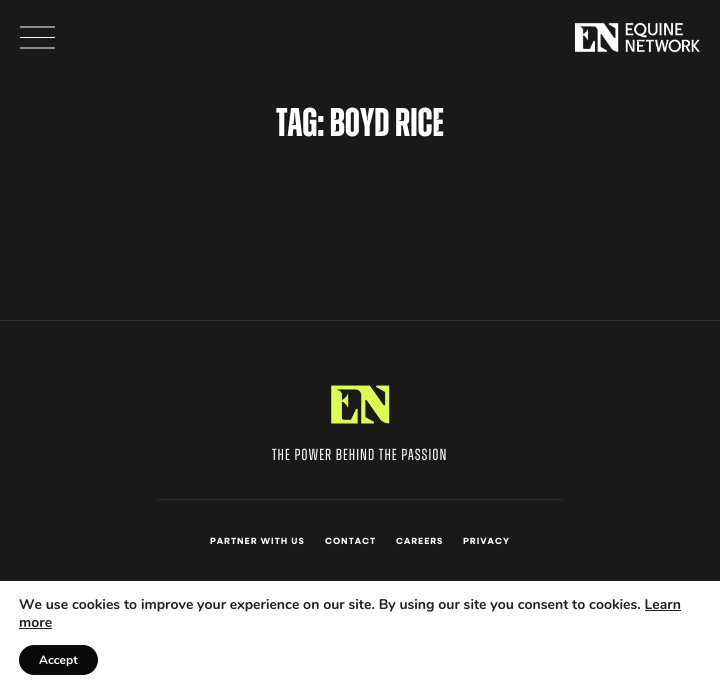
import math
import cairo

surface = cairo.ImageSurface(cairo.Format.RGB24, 720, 693)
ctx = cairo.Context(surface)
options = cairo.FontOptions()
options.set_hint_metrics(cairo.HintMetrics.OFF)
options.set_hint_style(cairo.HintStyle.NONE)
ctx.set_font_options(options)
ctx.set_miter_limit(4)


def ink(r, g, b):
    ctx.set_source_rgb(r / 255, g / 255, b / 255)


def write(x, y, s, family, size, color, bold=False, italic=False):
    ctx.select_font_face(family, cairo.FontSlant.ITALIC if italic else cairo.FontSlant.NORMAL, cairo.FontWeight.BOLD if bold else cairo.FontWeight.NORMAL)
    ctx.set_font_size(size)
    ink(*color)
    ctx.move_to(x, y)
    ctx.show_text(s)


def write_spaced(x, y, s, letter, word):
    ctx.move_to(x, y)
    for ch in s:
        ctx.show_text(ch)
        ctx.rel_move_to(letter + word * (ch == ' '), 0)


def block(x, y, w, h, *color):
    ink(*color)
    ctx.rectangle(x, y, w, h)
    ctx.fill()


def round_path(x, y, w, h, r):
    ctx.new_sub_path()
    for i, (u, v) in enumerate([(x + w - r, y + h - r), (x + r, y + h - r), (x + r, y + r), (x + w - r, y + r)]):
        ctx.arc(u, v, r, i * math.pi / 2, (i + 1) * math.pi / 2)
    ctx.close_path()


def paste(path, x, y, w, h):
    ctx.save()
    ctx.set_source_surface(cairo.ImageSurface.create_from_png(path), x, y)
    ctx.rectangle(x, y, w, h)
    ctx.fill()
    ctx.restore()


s1 = dict(family="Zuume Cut", size=40, color=(255, 255, 255), bold=True)
s2 = dict(family="Nunito", size=14, color=(32, 32, 32), bold=True)
s3 = dict(family="Nunito", size=12, color=(255, 255, 255), bold=True)

ink(26, 25, 24)
ctx.paint()
ink(255, 255, 255)
ctx.new_path()
ctx.move_to(20, 26.5)
ctx.line_to(20, 27.5)
ctx.line_to(55, 27.5)
ctx.line_to(55, 26.5)
ctx.close_path()
ctx.move_to(20, 37)
ctx.line_to(20, 38)
ctx.line_to(55, 38)
ctx.line_to(55, 37)
ctx.close_path()
ctx.move_to(20, 47.5)
ctx.line_to(20, 48.5)
ctx.line_to(55, 48.5)
ctx.line_to(55, 47.5)
ctx.close_path()
ctx.fill()
paste("pic1.png", 575, 22, 125, 31)
write(276, 136, "Tag: Boyd Rice", **s1)
block(0, 320, 720, 1, 46, 45, 44)
paste("pic2.png", 331, 385, 59, 39)
ctx.select_font_face("Zuume Cut")
ctx.set_font_size(16)
ink(255, 255, 255)
write_spaced(272, 460, "The Power Behind the Passion", 1, 0)
block(157, 499, 406, 1, 46, 45, 44)
ctx.select_font_face("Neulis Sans", cairo.FontSlant.NORMAL, cairo.FontWeight.BOLD)
ctx.set_font_size(9)
ink(255, 255, 255)
write_spaced(210, 544, "PARTNER WITH US", 1, 0)
write_spaced(325, 544, "CONTACT", 1, 0)
write_spaced(396, 544, "CAREERS", 1, 0)
write_spaced(463, 544, "PRIVACY", 1, 0)
block(0, 581, 720, 112, 255, 255, 255)
block(0, 580, 720, 1, 32, 32, 32)
write(19, 609, "We use cookies to improve your experience on our site. By using our site you consent to cookies. Learn", **s2)
block(645, 610, 36, 1, 32, 32, 32)
write(19, 627, "more", **s2)
block(19, 628, 33, 1, 32, 32, 32)
ink(10, 10, 10)
round_path(19, 645, 79, 30, 15)
ctx.fill()
write(39, 664, "Accept", **s3)
surface.write_to_png("screenshot.png")
